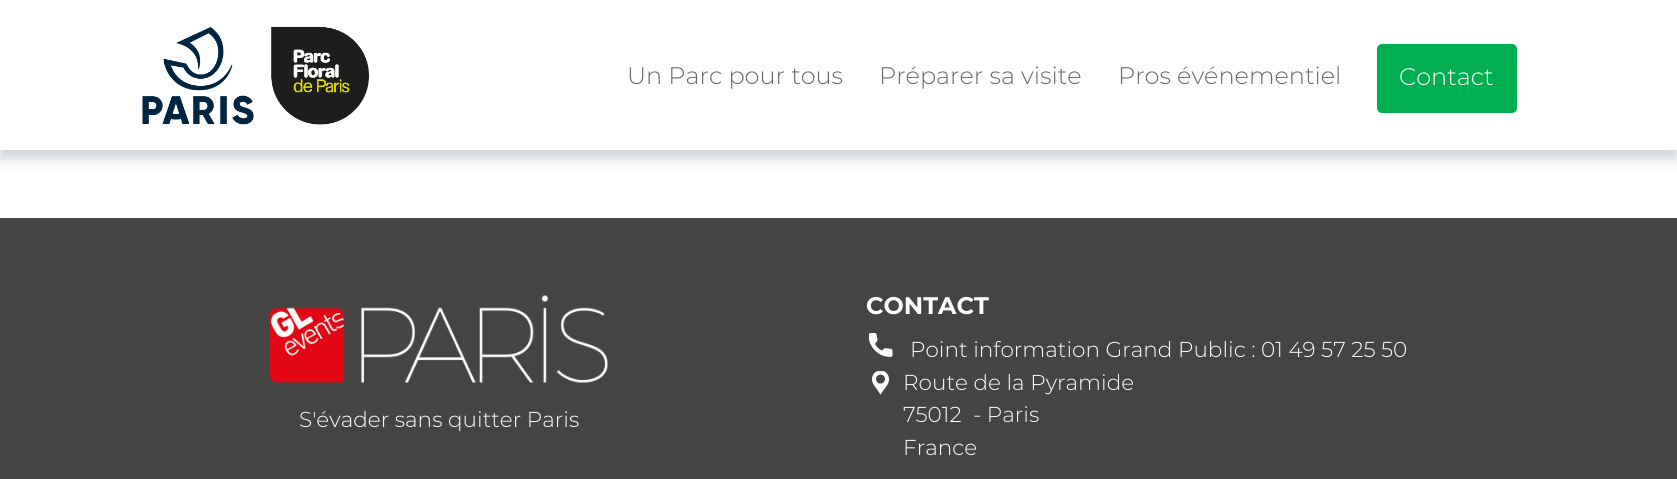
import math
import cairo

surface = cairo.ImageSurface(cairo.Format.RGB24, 1677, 479)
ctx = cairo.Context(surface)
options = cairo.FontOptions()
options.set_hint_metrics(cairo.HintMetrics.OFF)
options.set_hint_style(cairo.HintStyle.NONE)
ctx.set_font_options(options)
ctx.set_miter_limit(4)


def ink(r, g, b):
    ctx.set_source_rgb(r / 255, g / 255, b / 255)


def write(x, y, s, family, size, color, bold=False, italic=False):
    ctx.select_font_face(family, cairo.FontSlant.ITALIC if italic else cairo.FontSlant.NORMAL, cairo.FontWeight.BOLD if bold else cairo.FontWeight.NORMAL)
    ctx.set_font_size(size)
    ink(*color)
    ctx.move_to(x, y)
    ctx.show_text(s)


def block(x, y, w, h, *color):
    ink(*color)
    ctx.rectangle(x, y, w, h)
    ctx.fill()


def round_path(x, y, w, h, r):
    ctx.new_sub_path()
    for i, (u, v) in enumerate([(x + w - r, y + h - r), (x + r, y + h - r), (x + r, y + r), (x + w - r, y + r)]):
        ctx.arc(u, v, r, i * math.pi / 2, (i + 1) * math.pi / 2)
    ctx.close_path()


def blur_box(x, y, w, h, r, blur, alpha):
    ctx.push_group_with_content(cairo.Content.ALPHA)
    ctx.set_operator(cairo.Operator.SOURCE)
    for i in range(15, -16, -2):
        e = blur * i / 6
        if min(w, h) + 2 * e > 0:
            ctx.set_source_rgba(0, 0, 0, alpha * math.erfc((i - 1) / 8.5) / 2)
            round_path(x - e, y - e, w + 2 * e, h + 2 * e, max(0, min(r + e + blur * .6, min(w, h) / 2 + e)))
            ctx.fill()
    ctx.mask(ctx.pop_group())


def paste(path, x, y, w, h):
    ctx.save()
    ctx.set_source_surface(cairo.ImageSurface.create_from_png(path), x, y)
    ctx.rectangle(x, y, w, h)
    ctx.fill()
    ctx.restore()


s1 = dict(family="Montserrat Light", size=24, color=(111, 103, 103))
s2 = dict(family="Montserrat Light", size=24, color=(255, 255, 255))
s3 = dict(family="Montserrat Light", size=21.6, color=(255, 255, 255))
s4 = dict(family="Montserrat", size=24, color=(255, 255, 255), bold=True)

ink(255, 255, 255)
ctx.paint()
ink(149, 159, 166)
blur_box(0, 8, 1677, 150, 0, 7.5, 0.5)
block(0, 0, 1677, 150, 255, 255, 255)
paste("pic1.png", 142, 26, 227, 99)
write(627, 84, "Un Parc pour tous", **s1)
write(879, 84, "Préparer sa visite", **s1)
write(1118, 84, "Pros événementiel", **s1)
ink(0, 176, 80)
round_path(1377, 44, 140, 69, 5)
ctx.fill()
write(1399, 85, "Contact", **s2)
block(0, 218, 1677, 261, 68, 68, 68)
paste("pic2.png", 270, 295, 338, 88)
write(299, 427, "S'évader sans quitter Paris", **s3)
write(866, 314, "CONTACT", **s4)
paste("pic3.png", 869, 333, 24, 24)
write(910, 357, "Point information Grand Public : 01 49 57 25 50", **s3)
paste("pic4.png", 871, 371, 19, 24)
write(903, 390, "Route de la Pyramide", **s3)
write(903, 422, "75012", **s3)
write(973, 422, "- Paris", **s3)
write(903, 455, "France", **s3)
surface.write_to_png("screenshot.png")
